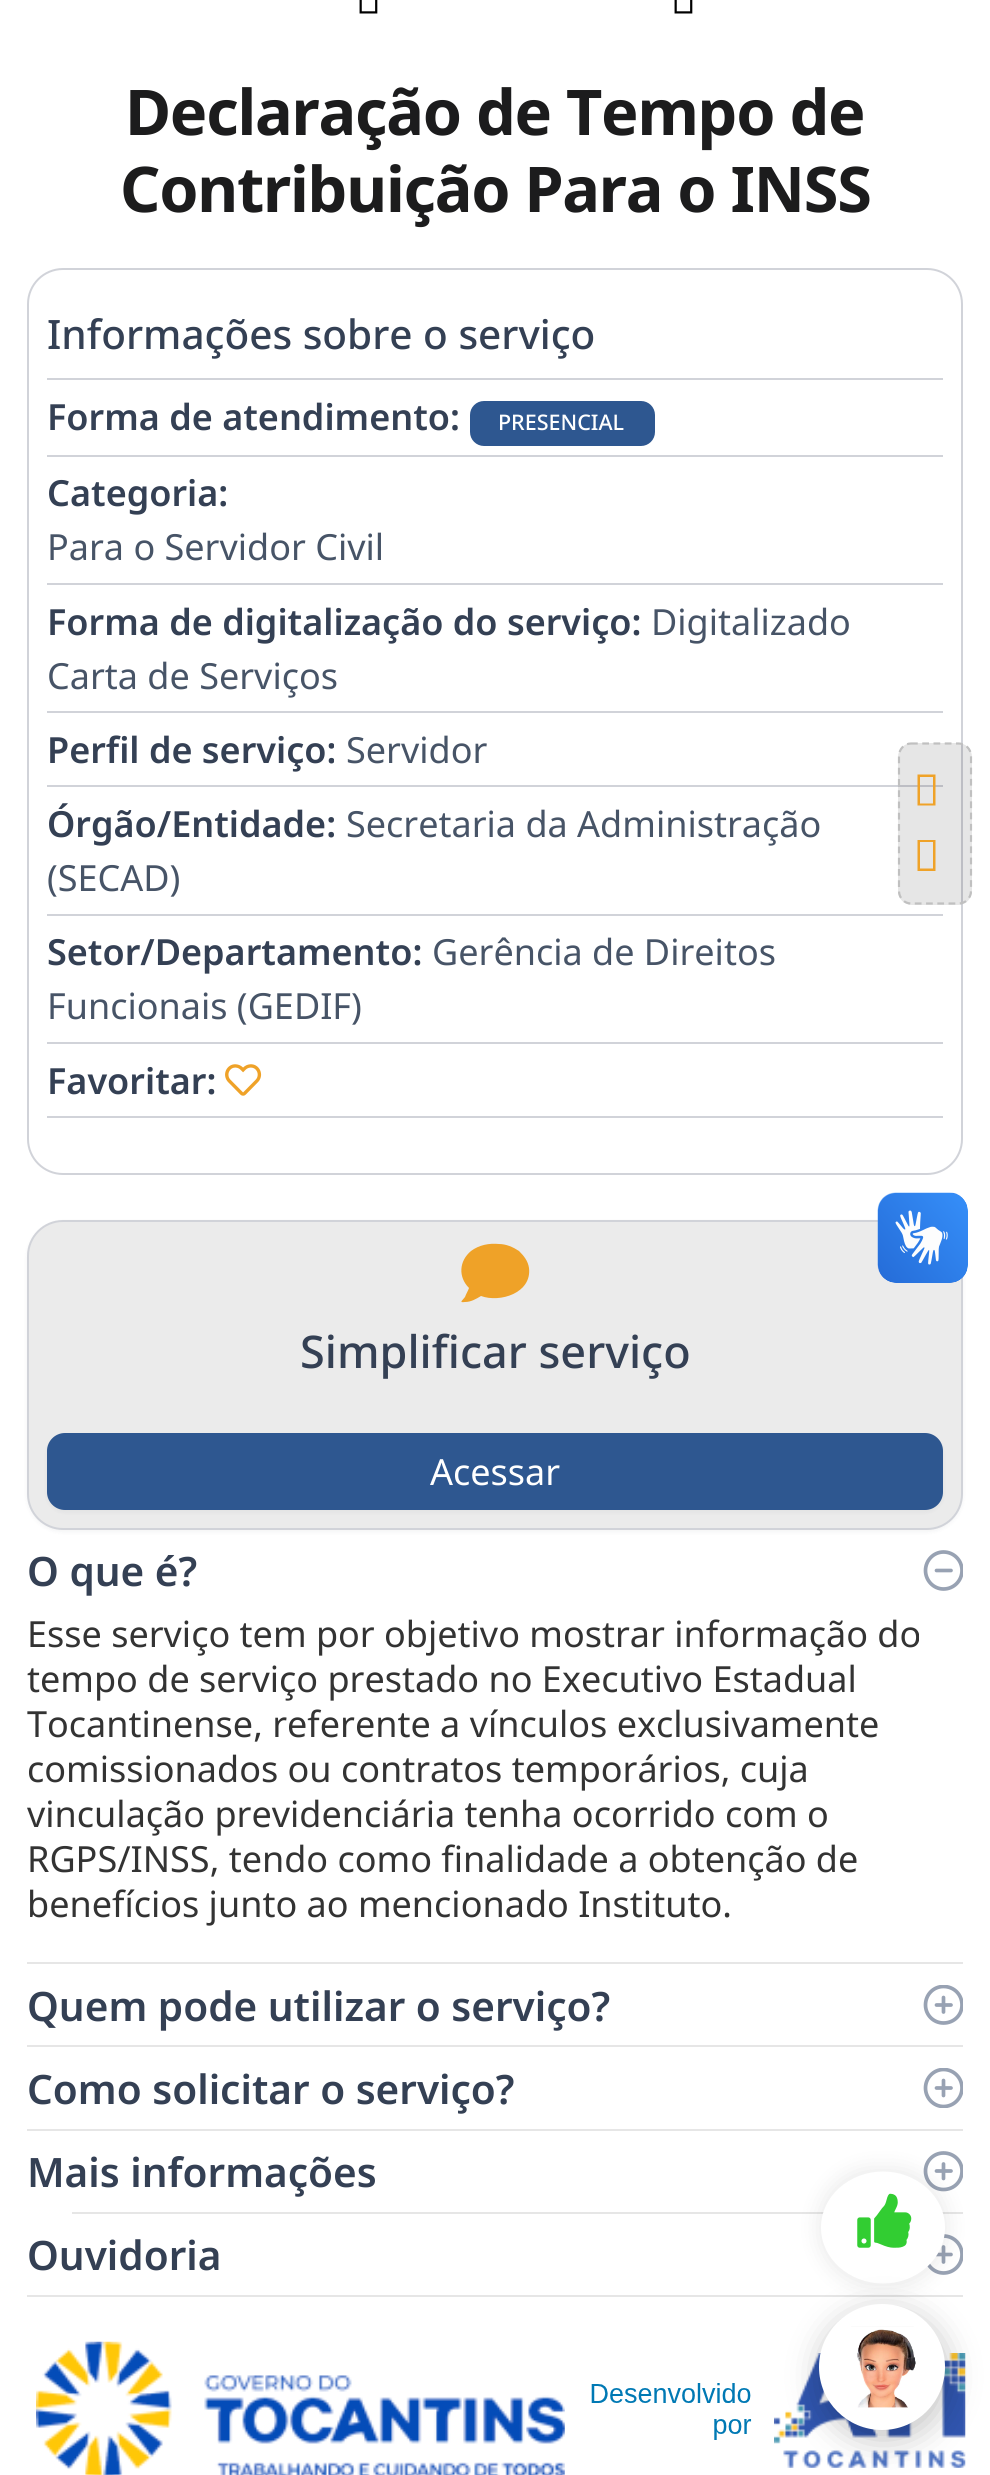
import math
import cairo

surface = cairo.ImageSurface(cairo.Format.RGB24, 990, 2475)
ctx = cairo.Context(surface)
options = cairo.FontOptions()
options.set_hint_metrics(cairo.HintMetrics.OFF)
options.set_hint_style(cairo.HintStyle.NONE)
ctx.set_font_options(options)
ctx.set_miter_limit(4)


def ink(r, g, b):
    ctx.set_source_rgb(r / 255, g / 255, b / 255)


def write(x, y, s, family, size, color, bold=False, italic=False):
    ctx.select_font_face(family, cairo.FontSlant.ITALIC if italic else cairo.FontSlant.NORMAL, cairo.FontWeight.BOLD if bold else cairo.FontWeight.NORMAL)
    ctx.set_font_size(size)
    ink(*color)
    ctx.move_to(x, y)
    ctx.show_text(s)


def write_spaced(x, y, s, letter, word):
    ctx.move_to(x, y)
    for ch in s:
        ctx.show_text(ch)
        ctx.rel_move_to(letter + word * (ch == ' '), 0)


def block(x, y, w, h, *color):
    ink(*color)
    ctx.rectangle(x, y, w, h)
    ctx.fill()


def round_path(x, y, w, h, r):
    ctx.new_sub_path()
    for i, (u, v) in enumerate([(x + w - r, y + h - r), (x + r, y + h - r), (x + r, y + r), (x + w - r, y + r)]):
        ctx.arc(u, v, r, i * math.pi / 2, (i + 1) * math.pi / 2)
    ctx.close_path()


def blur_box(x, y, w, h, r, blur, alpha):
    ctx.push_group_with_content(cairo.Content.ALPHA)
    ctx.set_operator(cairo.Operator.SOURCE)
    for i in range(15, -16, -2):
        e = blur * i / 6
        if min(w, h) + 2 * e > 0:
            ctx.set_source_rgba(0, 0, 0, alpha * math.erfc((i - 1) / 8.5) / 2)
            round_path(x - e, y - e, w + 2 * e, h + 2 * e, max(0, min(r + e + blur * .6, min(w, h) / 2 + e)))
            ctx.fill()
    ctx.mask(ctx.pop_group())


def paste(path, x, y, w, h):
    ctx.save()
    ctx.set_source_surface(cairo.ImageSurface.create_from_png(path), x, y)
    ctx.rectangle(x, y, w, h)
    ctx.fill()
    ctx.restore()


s1 = dict(family="Noto Sans Medium", size=40.5, color=(52, 64, 84))
s2 = dict(family="Noto Sans SemiBold", size=36, color=(52, 64, 84))
s3 = dict(family="Noto Sans Medium", size=21.5, color=(255, 255, 255))
s4 = dict(family="Noto Sans", size=36, color=(71, 84, 103))
s5 = dict(family="Noto Sans Medium", size=45, color=(52, 64, 84))
s6 = dict(family="Noto Sans", size=36, color=(255, 255, 255))
s7 = dict(family="Noto Sans SemiBold", size=40.5, color=(52, 64, 84))
s8 = dict(family="Noto Sans", size=36, color=(51, 51, 51))

ink(255, 255, 255)
ctx.paint()
paste("pic1.png", 359, 0, 19, 14)
paste("pic1.png", 674, 0, 19, 14)
ctx.select_font_face("Noto Sans", cairo.FontSlant.NORMAL, cairo.FontWeight.BOLD)
ctx.set_font_size(63)
ink(28, 28, 29)
write_spaced(125, 135, "Declaração de Tempo de", -1.25, 0)
write_spaced(120, 212, "Contribuição Para o INSS", -1.25, 0)
round_path(28, 269, 934, 905, 35)
ink(209, 211, 217)
ctx.stroke()
block(47, 378, 896, 2, 209, 211, 217)
write(47, 349, "Informações sobre o serviço", **s1)
block(47, 455, 896, 2, 209, 211, 217)
write(47, 430, "Forma de atendimento:", **s2)
ink(46, 87, 144)
round_path(470, 401, 185, 45, 14)
ctx.fill()
write(498, 430, "PRESENCIAL", **s3)
block(47, 583, 896, 2, 209, 211, 217)
write(47, 506, "Categoria:", **s2)
write(47, 560, "Para o Servidor Civil", **s4)
block(47, 711, 896, 2, 209, 211, 217)
write(47, 635, "Forma de digitalização do serviço:", **s2)
write(651, 635, "Digitalizado", **s4)
write(47, 689, "Carta de Serviços", **s4)
block(47, 785, 896, 2, 209, 211, 217)
write(47, 763, "Perfil de serviço:", **s2)
write(346, 763, "Servidor", **s4)
block(47, 914, 896, 2, 209, 211, 217)
write(47, 837, "Órgão/Entidade:", **s2)
write(346, 837, "Secretaria da Administração", **s4)
write(47, 891, "(SECAD)", **s4)
block(47, 1042, 896, 2, 209, 211, 217)
write(47, 965, "Setor/Departamento:", **s2)
write(432, 965, "Gerência de Direitos", **s4)
write(47, 1019, "Funcionais (GEDIF)", **s4)
block(47, 1116, 896, 2, 209, 211, 217)
write(47, 1094, "Favoritar:", **s2)
paste("pic2.png", 225, 1064, 37, 32)
ink(16, 24, 40)
blur_box(27, 1222, 936, 310, 36, 2, 0.05)
ink(235, 235, 235)
round_path(28, 1221, 934, 308, 35)
ctx.fill_preserve()
ink(209, 211, 217)
ctx.stroke()
ink(239, 162, 40)
ctx.new_path()
ctx.move_to(471, 1251)
ctx.curve_to(479, 1245, 489, 1243, 499, 1244)
ctx.curve_to(506, 1244, 513, 1247, 519, 1251)
ctx.curve_to(524, 1256, 528, 1261, 529, 1268)
ctx.curve_to(532, 1293, 500, 1303, 481, 1296)
ctx.curve_to(476, 1299, 471, 1302, 465, 1302)
ctx.curve_to(458, 1303, 463, 1300, 465, 1297)
ctx.curve_to(466, 1294, 468, 1291, 469, 1288)
ctx.curve_to(458, 1277, 459, 1261, 471, 1251)
ctx.close_path()
ctx.fill()
write(300, 1368, "Simplificar serviço", **s5)
ink(16, 24, 40)
blur_box(47, 1436, 896, 76, 18, 2, 0.05)
ink(46, 87, 144)
round_path(48, 1434, 894, 75, 17)
ctx.fill_preserve()
ctx.stroke()
write(430, 1485, "Acessar", **s6)
write(27, 1586, "O que é?", **s7)
ctx.save()
ctx.rectangle(923, 1550, 40, 41)
ctx.clip()
ctx.new_path()
ctx.move_to(936.5, 1570.5)
ctx.line_to(951, 1570.5)
ctx.move_to(962, 1570.5)
ctx.curve_to(962, 1580.5, 954, 1589, 943.5, 1589)
ctx.curve_to(933.5, 1589, 925.5, 1580.5, 925.5, 1570.5)
ctx.curve_to(925.5, 1560.5, 933.5, 1552, 943.5, 1552)
ctx.curve_to(954, 1552, 962, 1560.5, 962, 1570.5)
ctx.close_path()
ink(152, 162, 179)
ctx.set_line_width(3.7)
ctx.set_line_cap(cairo.LineCap.ROUND)
ctx.set_line_join(cairo.LineJoin.ROUND)
ctx.stroke()
ctx.restore()
block(27, 1962, 936, 2, 230, 230, 230)
write(27, 1647, "Esse serviço tem por objetivo mostrar informação do", **s8)
write(27, 1692, "tempo de serviço prestado no Executivo Estadual", **s8)
write(27, 1737, "Tocantinense, referente a vínculos exclusivamente", **s8)
write(27, 1782, "comissionados ou contratos temporários, cuja", **s8)
write(27, 1827, "vinculação previdenciária tenha ocorrido com o", **s8)
write(27, 1872, "RGPS/INSS, tendo como finalidade a obtenção de", **s8)
write(27, 1917, "benefícios junto ao mencionado Instituto.", **s8)
write(27, 2021, "Quem pode utilizar o serviço?", **s7)
ctx.save()
ctx.rectangle(923, 1985, 40, 40)
ctx.clip()
ctx.new_path()
ctx.move_to(943.5, 1997.5)
ctx.line_to(943.5, 2012)
ctx.move_to(936.5, 2005)
ctx.line_to(951, 2005)
ctx.move_to(962, 2005)
ctx.curve_to(962, 2015, 954, 2023, 943.5, 2023)
ctx.curve_to(933.5, 2023, 925.5, 2015, 925.5, 2005)
ctx.curve_to(925.5, 1994.5, 933.5, 1986.5, 943.5, 1986.5)
ctx.curve_to(954, 1986.5, 962, 1994.5, 962, 2005)
ctx.close_path()
ink(152, 162, 179)
ctx.set_line_width(3.7)
ctx.set_line_cap(cairo.LineCap.ROUND)
ctx.set_line_join(cairo.LineJoin.ROUND)
ctx.stroke()
ctx.restore()
block(27, 2045, 936, 2, 230, 230, 230)
write(27, 2104, "Como solicitar o serviço?", **s7)
ctx.save()
ctx.rectangle(923, 2068, 40, 40)
ctx.clip()
ctx.new_path()
ctx.move_to(943.5, 2080.5)
ctx.line_to(943.5, 2095.5)
ctx.move_to(936.5, 2088)
ctx.line_to(951, 2088)
ctx.move_to(962, 2088)
ctx.curve_to(962, 2098, 954, 2106.5, 943.5, 2106.5)
ctx.curve_to(933.5, 2106.5, 925.5, 2098, 925.5, 2088)
ctx.curve_to(925.5, 2078, 933.5, 2069.5, 943.5, 2069.5)
ctx.curve_to(954, 2069.5, 962, 2078, 962, 2088)
ctx.close_path()
ink(152, 162, 179)
ctx.set_line_width(3.7)
ctx.set_line_cap(cairo.LineCap.ROUND)
ctx.set_line_join(cairo.LineJoin.ROUND)
ctx.stroke()
ctx.restore()
block(27, 2129, 936, 2, 230, 230, 230)
write(27, 2187, "Mais informações", **s7)
ctx.save()
ctx.rectangle(923, 2151, 40, 41)
ctx.clip()
ctx.new_path()
ctx.move_to(943.5, 2164)
ctx.line_to(943.5, 2178.5)
ctx.move_to(936.5, 2171)
ctx.line_to(951, 2171)
ctx.move_to(962, 2171)
ctx.curve_to(962, 2181.5, 954, 2189.5, 943.5, 2189.5)
ctx.curve_to(933.5, 2189.5, 925.5, 2181.5, 925.5, 2171)
ctx.curve_to(925.5, 2161, 933.5, 2153, 943.5, 2153)
ctx.curve_to(954, 2153, 962, 2161, 962, 2171)
ctx.close_path()
ink(152, 162, 179)
ctx.set_line_width(3.7)
ctx.set_line_cap(cairo.LineCap.ROUND)
ctx.set_line_join(cairo.LineJoin.ROUND)
ctx.stroke()
ctx.restore()
block(72, 2212, 891, 2, 230, 230, 230)
write(27, 2270, "Ouvidoria", **s7)
ctx.save()
ctx.rectangle(923, 2234, 40, 41)
ctx.clip()
ctx.new_path()
ctx.move_to(943.5, 2247)
ctx.line_to(943.5, 2262)
ctx.move_to(936.5, 2254.5)
ctx.line_to(951, 2254.5)
ctx.move_to(962, 2254.5)
ctx.curve_to(962, 2264.5, 954, 2273, 943.5, 2273)
ctx.curve_to(933.5, 2273, 925.5, 2264.5, 925.5, 2254.5)
ctx.curve_to(925.5, 2244.5, 933.5, 2236, 943.5, 2236)
ctx.curve_to(954, 2236, 962, 2244.5, 962, 2254.5)
ctx.close_path()
ink(152, 162, 179)
ctx.set_line_width(3.7)
ctx.set_line_cap(cairo.LineCap.ROUND)
ctx.set_line_join(cairo.LineJoin.ROUND)
ctx.stroke()
ctx.restore()
block(27, 2295, 936, 2, 230, 230, 230)
ctx.set_source_rgba(0, 0, 0, 0.1)
round_path(898, 743, 74, 162, 14)
ctx.fill()
ctx.new_path()
ctx.move_to(911, 743.5)
ctx.line_to(958.5, 743.5)
ctx.curve_to(965.5, 743.5, 971, 749, 971, 756)
ctx.line_to(971, 891)
ctx.curve_to(971, 898, 965.5, 903.5, 958.5, 903.5)
ctx.line_to(911, 903.5)
ctx.curve_to(904.5, 903.5, 899, 898, 899, 891)
ctx.line_to(899, 756)
ctx.curve_to(899, 749, 904.5, 743.5, 911, 743.5)
ctx.close_path()
ink(192, 192, 192)
ctx.set_line_width(2.2)
ctx.set_dash([6.75, 4.5])
ctx.stroke()
ink(239, 162, 40)
ctx.new_path()
ctx.move_to(917.5, 805.5)
ctx.line_to(917.5, 774.5)
ctx.line_to(935.5, 774.5)
ctx.line_to(935.5, 805.5)
ctx.close_path()
ctx.move_to(920, 803.5)
ctx.line_to(933, 803.5)
ctx.line_to(933, 777)
ctx.line_to(920, 777)
ctx.close_path()
ctx.fill()
ctx.new_path()
ctx.move_to(917.5, 871)
ctx.line_to(917.5, 840)
ctx.line_to(935.5, 840)
ctx.line_to(935.5, 871)
ctx.close_path()
ctx.move_to(920, 868.5)
ctx.line_to(933, 868.5)
ctx.line_to(933, 842)
ctx.line_to(920, 842)
ctx.close_path()
ctx.fill()
paste("pic3.png", 877, 1192, 91, 91)
paste("pic4.png", 878, 1193, 90, 90)
ink(0, 0, 0)
blur_box(821, 2171, 124, 113, 56.5, 11, 0.1)
ink(255, 255, 255)
ctx.new_path()
ctx.move_to(883, 2171.5)
ctx.curve_to(917, 2171.5, 945, 2196.5, 945, 2227.5)
ctx.curve_to(945, 2258.5, 917, 2283.5, 883, 2283.5)
ctx.curve_to(849, 2283.5, 821, 2258.5, 821, 2227.5)
ctx.curve_to(821, 2196.5, 849, 2171.5, 883, 2171.5)
ctx.close_path()
ctx.fill()
paste("pic5.png", 857, 2193, 55, 55)
paste("pic7.png", 36, 2341, 930, 134)
ink(0, 0, 0)
blur_box(821, 2313, 126, 126, 63, 17, 0.24)
ink(255, 255, 255)
ctx.arc(882, 2367, 63, 0, 2 * math.pi)
ctx.fill()
paste("pic6.png", 851, 2326, 65, 82)
surface.write_to_png("screenshot.png")
